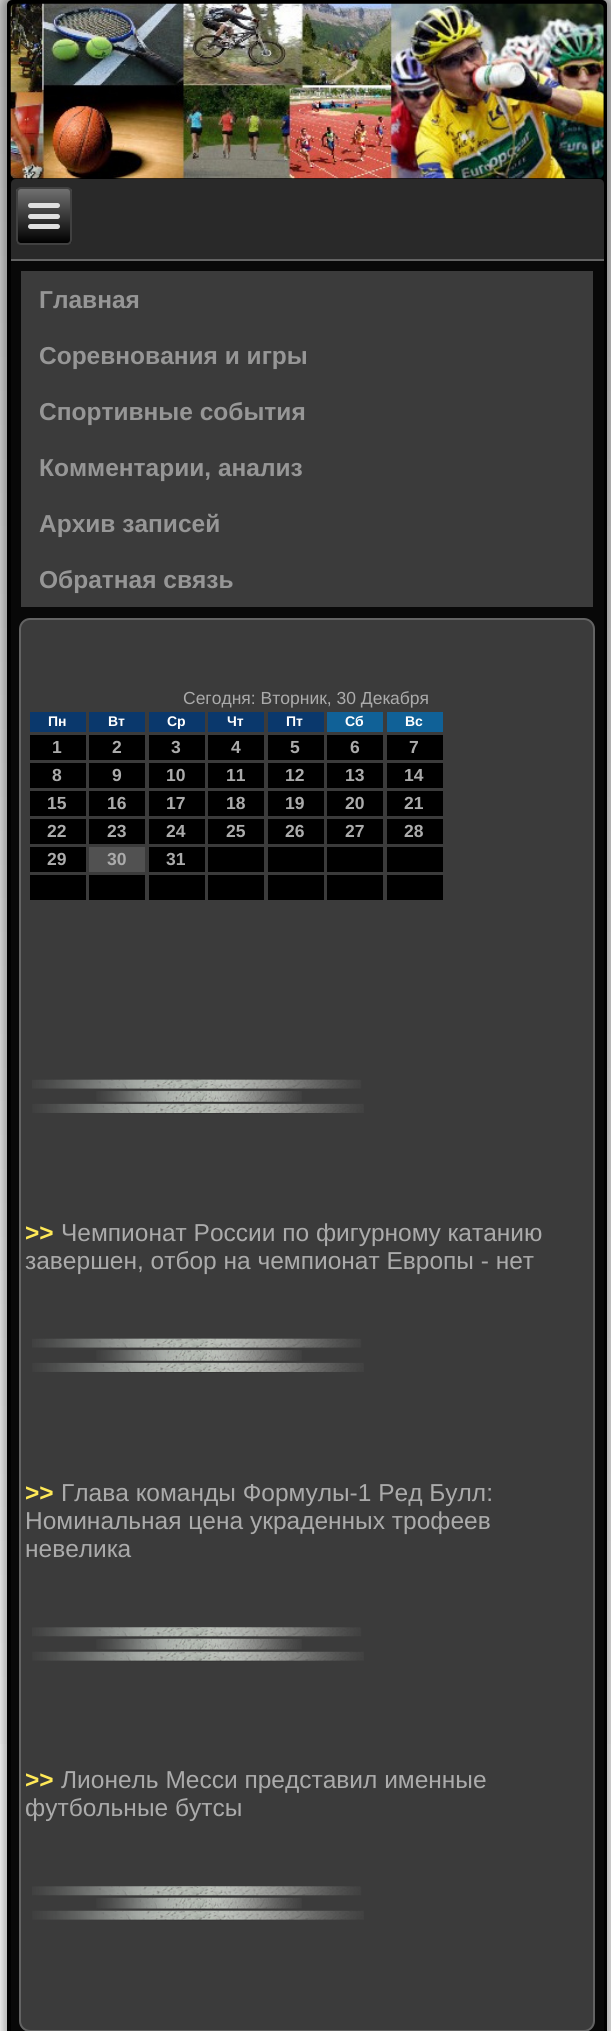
import math
import cairo

surface = cairo.ImageSurface(cairo.Format.RGB24, 611, 2031)
ctx = cairo.Context(surface)
options = cairo.FontOptions()
options.set_hint_metrics(cairo.HintMetrics.OFF)
options.set_hint_style(cairo.HintStyle.NONE)
ctx.set_font_options(options)
ctx.set_miter_limit(4)


def ink(r, g, b):
    ctx.set_source_rgb(r / 255, g / 255, b / 255)


def write(x, y, s, family, size, color, bold=False, italic=False):
    ctx.select_font_face(family, cairo.FontSlant.ITALIC if italic else cairo.FontSlant.NORMAL, cairo.FontWeight.BOLD if bold else cairo.FontWeight.NORMAL)
    ctx.set_font_size(size)
    ink(*color)
    ctx.move_to(x, y)
    ctx.show_text(s)


def block(x, y, w, h, *color):
    ink(*color)
    ctx.rectangle(x, y, w, h)
    ctx.fill()


def round_path(x, y, w, h, r):
    ctx.new_sub_path()
    for i, (u, v) in enumerate([(x + w - r, y + h - r), (x + r, y + h - r), (x + r, y + r), (x + w - r, y + r)]):
        ctx.arc(u, v, r, i * math.pi / 2, (i + 1) * math.pi / 2)
    ctx.close_path()


def blur_box(x, y, w, h, r, blur, alpha):
    ctx.push_group_with_content(cairo.Content.ALPHA)
    ctx.set_operator(cairo.Operator.SOURCE)
    for i in range(15, -16, -2):
        e = blur * i / 6
        if min(w, h) + 2 * e > 0:
            ctx.set_source_rgba(0, 0, 0, alpha * math.erfc((i - 1) / 8.5) / 2)
            round_path(x - e, y - e, w + 2 * e, h + 2 * e, max(0, min(r + e + blur * .6, min(w, h) / 2 + e)))
            ctx.fill()
    ctx.mask(ctx.pop_group())


def paste(path, x, y, w, h):
    ctx.save()
    ctx.set_source_surface(cairo.ImageSurface.create_from_png(path), x, y)
    ctx.rectangle(x, y, w, h)
    ctx.fill()
    ctx.restore()


s1 = dict(family="Liberation Sans", size=24.5, color=(150, 150, 150), bold=True)
s2 = dict(family="Liberation Sans", size=17.5, color=(171, 171, 171))
s3 = dict(family="Liberation Sans", size=14, color=(255, 255, 255), bold=True)
s4 = dict(family="Liberation Sans", size=17.5, color=(171, 171, 171), bold=True)
s5 = dict(family="Liberation Sans", size=24.5, color=(255, 233, 87), bold=True)
s6 = dict(family="Liberation Sans", size=24.5, color=(171, 171, 171))

ink(255, 255, 255)
ctx.paint()
gradient = cairo.LinearGradient(306, 0, 306, 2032)
gradient.add_color_stop_rgba(0, 0.788, 0.788, 0.788, 1)
gradient.add_color_stop_rgba(0.9, 1, 1, 1, 1)
ctx.set_source(gradient)
ctx.rectangle(0, 0, 611, 1744)
ctx.fill()
ink(0, 0, 0)
blur_box(2, -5, 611, 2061, 11, 4.5, 0.3)
ink(0, 0, 0)
round_path(7, 0, 600, 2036, 5)
ctx.fill()
paste("pic1.png", 10, 3, 594, 176)
ink(41, 41, 41)
ctx.new_path()
ctx.move_to(16, 179)
ctx.line_to(599, 179)
ctx.curve_to(602, 179, 604, 181, 604, 184)
ctx.line_to(604, 261)
ctx.line_to(11, 261)
ctx.line_to(11, 184)
ctx.curve_to(11, 181, 13, 179, 16, 179)
ctx.close_path()
ctx.fill()
block(11, 259, 593, 2, 99, 99, 99)
ctx.save()
round_path(16, 187, 56, 58, 5)
ctx.clip()
gradient = cairo.LinearGradient(44, 189, 44, 243)
gradient.add_color_stop_rgba(0, 0.439, 0.439, 0.439, 1)
gradient.add_color_stop_rgba(1, 0, 0, 0, 1)
ctx.set_source(gradient)
ctx.rectangle(16, 189, 56, 54)
ctx.fill()
ctx.restore()
round_path(17, 188, 54, 56, 4)
ink(64, 64, 64)
ctx.stroke()
ink(224, 224, 224)
round_path(28, 203, 32, 5, 2.5)
ctx.fill()
round_path(28, 214, 32, 5, 2.5)
ctx.fill()
round_path(28, 224, 32, 5, 2.5)
ctx.fill()
block(11, 261, 593, 1770, 8, 8, 8)
block(21, 271, 572, 336, 59, 59, 59)
write(39, 308, "Главная", **s1)
write(39, 364, "Соревнования и игры", **s1)
write(39, 420, "Спортивные события", **s1)
write(39, 476, "Комментарии, анализ", **s1)
write(39, 532, "Архив записей", **s1)
write(39, 588, "Обратная связь", **s1)
ink(59, 59, 59)
round_path(20, 619, 574, 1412, 10)
ctx.fill_preserve()
ink(99, 99, 99)
ctx.stroke()
write(183, 704, "Сегодня: Вторник, 30 Декабря", **s2)
block(30, 712, 56, 20, 10, 56, 108)
write(48, 726, "Пн", **s3)
block(89, 712, 56, 20, 10, 56, 108)
write(108, 726, "Вт", **s3)
block(149, 712, 56, 20, 10, 56, 108)
write(167, 726, "Ср", **s3)
block(208, 712, 56, 20, 10, 56, 108)
write(227, 726, "Чт", **s3)
block(268, 712, 56, 20, 10, 56, 108)
write(286, 726, "Пт", **s3)
block(327, 712, 56, 20, 16, 97, 151)
write(345, 726, "Сб", **s3)
block(387, 712, 56, 20, 16, 97, 151)
write(405, 726, "Вс", **s3)
block(30, 735, 56, 25, 0, 0, 0)
write(52, 753, "1", **s4)
block(89, 735, 56, 25, 0, 0, 0)
write(112, 753, "2", **s4)
block(149, 735, 56, 25, 0, 0, 0)
write(171, 753, "3", **s4)
block(208, 735, 56, 25, 0, 0, 0)
write(231, 753, "4", **s4)
block(268, 735, 56, 25, 0, 0, 0)
write(290, 753, "5", **s4)
block(327, 735, 56, 25, 0, 0, 0)
write(350, 753, "6", **s4)
block(387, 735, 56, 25, 0, 0, 0)
write(409, 753, "7", **s4)
block(30, 763, 56, 25, 0, 0, 0)
write(52, 781, "8", **s4)
block(89, 763, 56, 25, 0, 0, 0)
write(112, 781, "9", **s4)
block(149, 763, 56, 25, 0, 0, 0)
write(166, 781, "10", **s4)
block(208, 763, 56, 25, 0, 0, 0)
write(226, 781, "11", **s4)
block(268, 763, 56, 25, 0, 0, 0)
write(285, 781, "12", **s4)
block(327, 763, 56, 25, 0, 0, 0)
write(345, 781, "13", **s4)
block(387, 763, 56, 25, 0, 0, 0)
write(404, 781, "14", **s4)
block(30, 791, 56, 25, 0, 0, 0)
write(47, 809, "15", **s4)
block(89, 791, 56, 25, 0, 0, 0)
write(107, 809, "16", **s4)
block(149, 791, 56, 25, 0, 0, 0)
write(166, 809, "17", **s4)
block(208, 791, 56, 25, 0, 0, 0)
write(226, 809, "18", **s4)
block(268, 791, 56, 25, 0, 0, 0)
write(285, 809, "19", **s4)
block(327, 791, 56, 25, 0, 0, 0)
write(345, 809, "20", **s4)
block(387, 791, 56, 25, 0, 0, 0)
write(404, 809, "21", **s4)
block(30, 819, 56, 25, 0, 0, 0)
write(47, 837, "22", **s4)
block(89, 819, 56, 25, 0, 0, 0)
write(107, 837, "23", **s4)
block(149, 819, 56, 25, 0, 0, 0)
write(166, 837, "24", **s4)
block(208, 819, 56, 25, 0, 0, 0)
write(226, 837, "25", **s4)
block(268, 819, 56, 25, 0, 0, 0)
write(285, 837, "26", **s4)
block(327, 819, 56, 25, 0, 0, 0)
write(345, 837, "27", **s4)
block(387, 819, 56, 25, 0, 0, 0)
write(404, 837, "28", **s4)
block(30, 847, 56, 25, 0, 0, 0)
write(47, 865, "29", **s4)
block(89, 847, 56, 25, 81, 81, 81)
write(107, 865, "30", **s4)
block(149, 847, 56, 25, 0, 0, 0)
write(166, 865, "31", **s4)
block(208, 847, 56, 25, 0, 0, 0)
block(268, 847, 56, 25, 0, 0, 0)
block(327, 847, 56, 25, 0, 0, 0)
block(387, 847, 56, 25, 0, 0, 0)
block(30, 875, 56, 25, 0, 0, 0)
block(89, 875, 56, 25, 0, 0, 0)
block(149, 875, 56, 25, 0, 0, 0)
block(208, 875, 56, 25, 0, 0, 0)
block(268, 875, 56, 25, 0, 0, 0)
block(327, 875, 56, 25, 0, 0, 0)
block(387, 875, 56, 25, 0, 0, 0)
paste("pic2.png", 32, 1079, 332, 35)
write(25, 1241, ">>", **s5)
write(61, 1241, "Чемпионат России по фигурному катанию", **s6)
write(25, 1269, "завершен, отбор на чемпионат Европы - нет", **s6)
paste("pic2.png", 32, 1338, 332, 35)
write(25, 1501, ">>", **s5)
write(61, 1501, "Глава команды Формулы-1 Ред Булл:", **s6)
write(25, 1529, "Номинальная цена украденных трофеев", **s6)
write(25, 1557, "невелика", **s6)
paste("pic3.png", 32, 1627, 332, 35)
write(25, 1788, ">>", **s5)
write(61, 1788, "Лионель Месси представил именные", **s6)
write(25, 1816, "футбольные бутсы", **s6)
paste("pic3.png", 32, 1886, 332, 35)
surface.write_to_png("screenshot.png")
